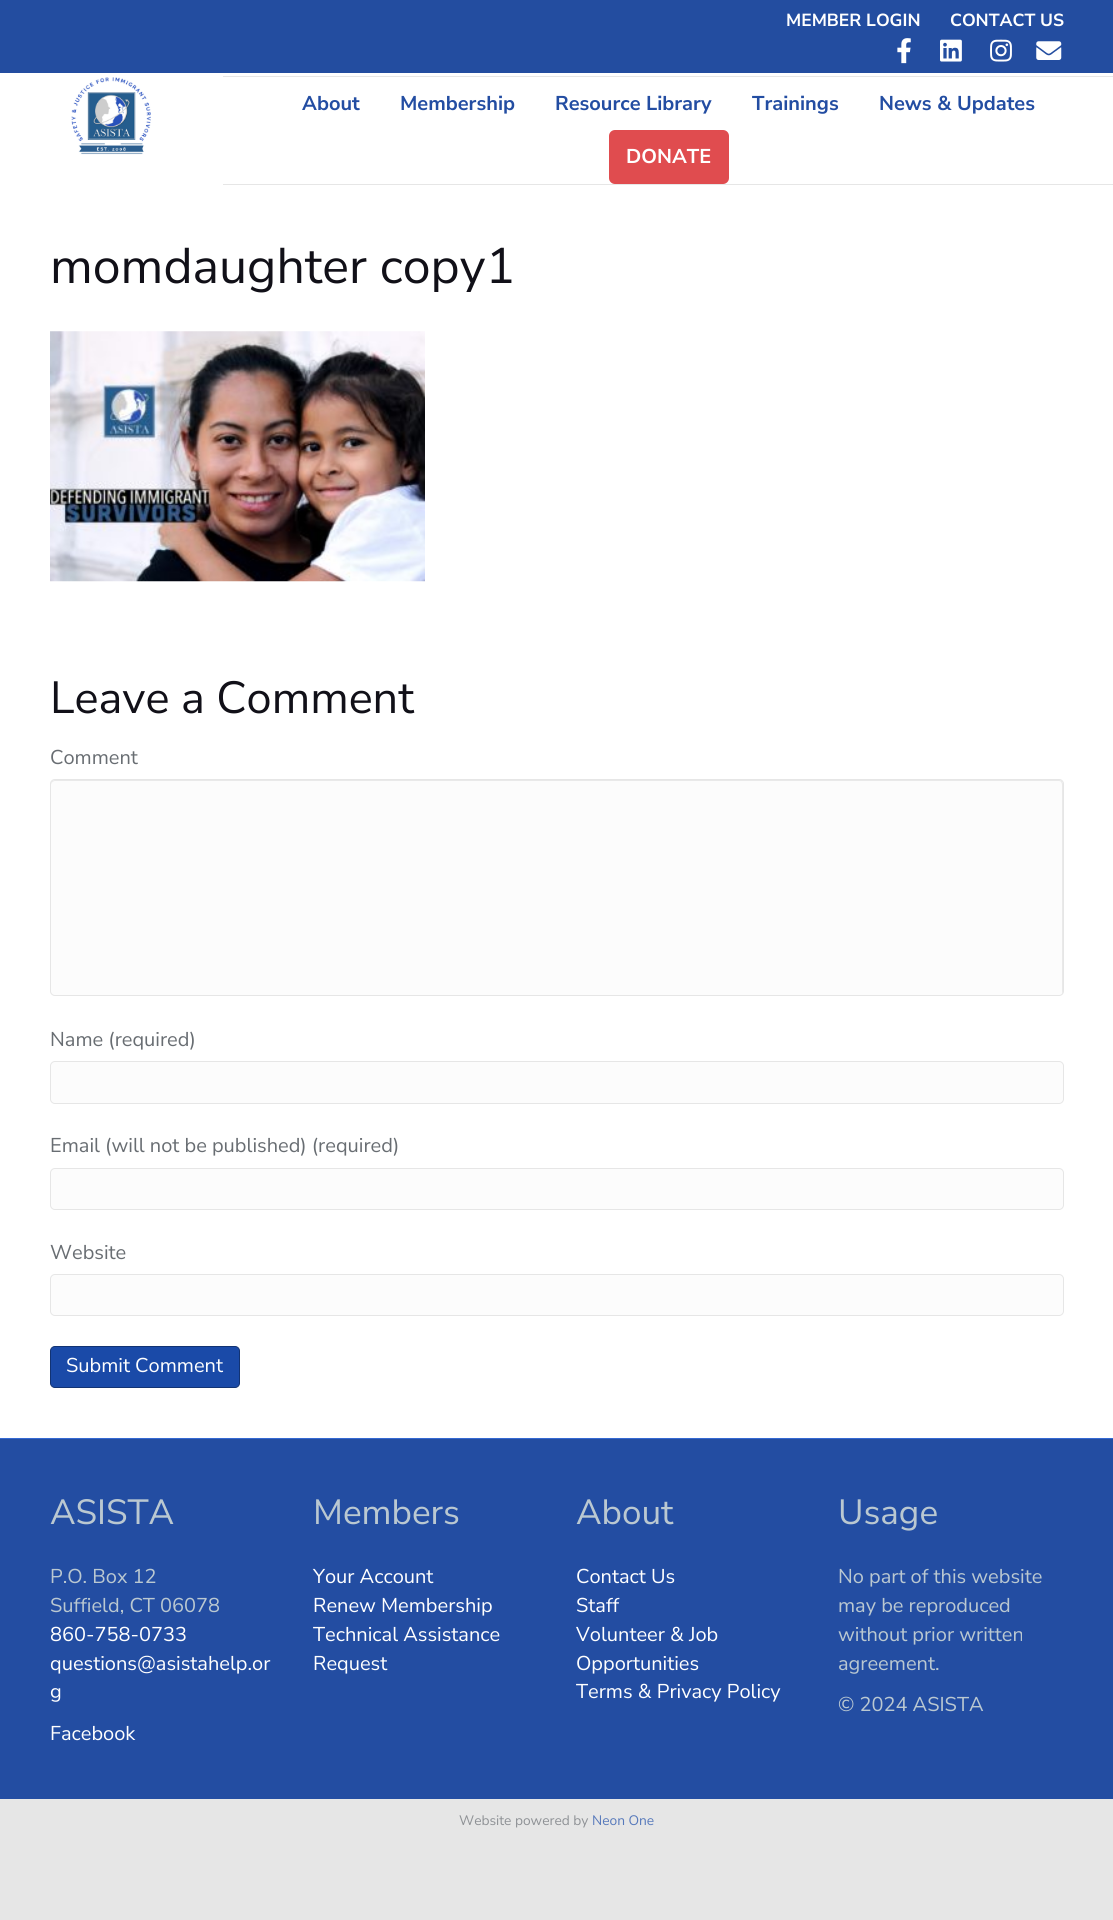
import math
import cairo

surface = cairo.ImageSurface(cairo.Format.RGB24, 1113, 1920)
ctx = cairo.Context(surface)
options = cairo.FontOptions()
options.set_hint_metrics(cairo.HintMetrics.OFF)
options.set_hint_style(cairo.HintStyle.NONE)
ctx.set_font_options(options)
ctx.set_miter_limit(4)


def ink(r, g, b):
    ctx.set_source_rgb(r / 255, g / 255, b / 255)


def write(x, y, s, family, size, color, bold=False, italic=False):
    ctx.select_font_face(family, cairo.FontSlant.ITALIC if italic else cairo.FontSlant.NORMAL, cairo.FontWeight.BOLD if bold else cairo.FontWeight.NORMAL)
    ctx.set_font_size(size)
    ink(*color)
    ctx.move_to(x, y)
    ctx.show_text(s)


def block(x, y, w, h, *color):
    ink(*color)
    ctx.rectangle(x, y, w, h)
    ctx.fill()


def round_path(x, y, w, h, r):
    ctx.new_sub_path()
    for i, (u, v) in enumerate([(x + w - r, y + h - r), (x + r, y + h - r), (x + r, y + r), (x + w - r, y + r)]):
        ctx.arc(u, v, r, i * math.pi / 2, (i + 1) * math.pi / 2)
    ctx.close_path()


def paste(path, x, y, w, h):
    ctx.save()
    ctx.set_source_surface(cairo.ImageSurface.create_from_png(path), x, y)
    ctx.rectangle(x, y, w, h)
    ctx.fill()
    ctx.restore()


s1 = dict(family="Nunito Sans", size=17.5, color=(255, 255, 255), bold=True)
s2 = dict(family="Nunito Sans", size=20, color=(35, 77, 162), bold=True)
s3 = dict(family="Nunito Sans", size=20, color=(255, 255, 255), bold=True)
s4 = dict(family="Nunito Sans", size=50, color=(17, 16, 24))
s5 = dict(family="Nunito Sans", size=45, color=(17, 16, 24))
s6 = dict(family="Nunito Sans", size=20, color=(104, 109, 114))
s7 = dict(family="Nunito Sans", size=20, color=(255, 255, 255))
s8 = dict(family="Nunito Sans", size=35, color=(186, 200, 209))
s9 = dict(family="Nunito Sans", size=20, color=(186, 200, 209))
s10 = dict(family="Nunito Sans", size=13.75, color=(142, 145, 149))
s11 = dict(family="Nunito Sans", size=13.75, color=(87, 121, 187))

ink(230, 230, 230)
ctx.paint()
block(0, 0, 1113, 73, 35, 77, 160)
write(786, 26, "MEMBER LOGIN", **s1)
write(950, 26, "CONTACT US", **s1)
paste("pic1.png", 897, 38, 14, 26)
paste("pic2.png", 940, 39, 22, 23)
paste("pic3.png", 990, 39, 22, 23)
paste("pic4.png", 1036, 41, 26, 19)
block(0, 73, 1113, 1365, 255, 255, 255)
paste("pic5.png", 71, 77, 80, 78)
block(223, 76, 890, 1, 230, 230, 230)
block(223, 184, 890, 1, 230, 230, 230)
write(302, 110, "About", **s2)
write(400, 110, "Membership", **s2)
write(555, 110, "Resource Library", **s2)
write(752, 110, "Trainings", **s2)
write(879, 110, "News & Updates", **s2)
ink(224, 76, 79)
round_path(609, 130, 120, 54, 6)
ctx.fill()
write(626, 163, "DONATE", **s3)
write(50, 283, "momdaughter copy1", **s4)
paste("pic6.png", 50, 331, 375, 251)
write(50, 713, "Leave a Comment", **s5)
write(50, 764, "Comment", **s6)
ink(252, 252, 252)
round_path(50, 779, 1014, 217, 5)
ctx.fill()
ink(233, 233, 233)
ctx.new_path()
ctx.move_to(55, 781)
ctx.line_to(1059, 781)
ctx.curve_to(1061, 781, 1062, 783, 1062, 785)
ctx.line_to(1062, 994)
ctx.curve_to(1063, 993, 1063, 992, 1063, 991)
ctx.line_to(1063, 784)
ctx.curve_to(1063, 782, 1061, 780, 1059, 780)
ctx.line_to(55, 780)
ctx.curve_to(53, 780, 51, 782, 51, 784)
ctx.line_to(51, 785)
ctx.curve_to(51, 783, 53, 781, 55, 781)
ctx.close_path()
ctx.fill()
round_path(50.5, 779.5, 1013, 216, 4.5)
ink(230, 230, 230)
ctx.set_line_width(1)
ctx.stroke()
write(50, 1046, "Name (required)", **s6)
ink(252, 252, 252)
round_path(50.5, 1061.5, 1013, 42, 4.5)
ctx.fill_preserve()
ink(230, 230, 230)
ctx.stroke()
write(50, 1152, "Email (will not be published) (required)", **s6)
ink(252, 252, 252)
round_path(50.5, 1168.5, 1013, 41, 4.5)
ctx.fill_preserve()
ink(230, 230, 230)
ctx.stroke()
write(50, 1259, "Website", **s6)
ink(252, 252, 252)
round_path(50.5, 1274.5, 1013, 41, 4.5)
ctx.fill_preserve()
ink(230, 230, 230)
ctx.stroke()
ink(26, 74, 168)
round_path(50.5, 1346.5, 189, 41, 4.5)
ctx.fill_preserve()
ink(18, 51, 115)
ctx.stroke()
write(66, 1372, "Submit Comment", **s7)
block(0, 1439, 1113, 360, 35, 77, 162)
block(0, 1438, 1113, 1, 52, 105, 211)
write(50, 1524, "ASISTA", **s8)
write(50, 1583, "P.O. Box 12", **s9)
write(50, 1612, "Suffield, CT 06078", **s9)
write(50, 1641, "860-758-0733", **s7)
write(50, 1670, "questions@asistahelp.or", **s7)
write(50, 1698, "g", **s7)
write(50, 1740, "Facebook", **s7)
write(313, 1524, "Members", **s8)
write(313, 1583, "Your Account", **s7)
write(313, 1612, "Renew Membership", **s7)
write(313, 1641, "Technical Assistance", **s7)
write(313, 1670, "Request", **s7)
write(576, 1524, "About", **s8)
write(576, 1583, "Contact Us", **s7)
write(576, 1612, "Staff", **s7)
write(576, 1641, "Volunteer & Job", **s7)
write(576, 1670, "Opportunities", **s7)
write(576, 1698, "Terms & Privacy Policy", **s7)
write(838, 1524, "Usage", **s8)
write(838, 1583, "No part of this website", **s9)
write(838, 1612, "may be reproduced", **s9)
write(838, 1641, "without prior written", **s9)
write(838, 1670, "agreement.", **s9)
write(838, 1711, "© 2024 ASISTA", **s9)
write(459, 1825, "Website powered by", **s10)
write(592, 1825, "Neon One", **s11)
surface.write_to_png("screenshot.png")
